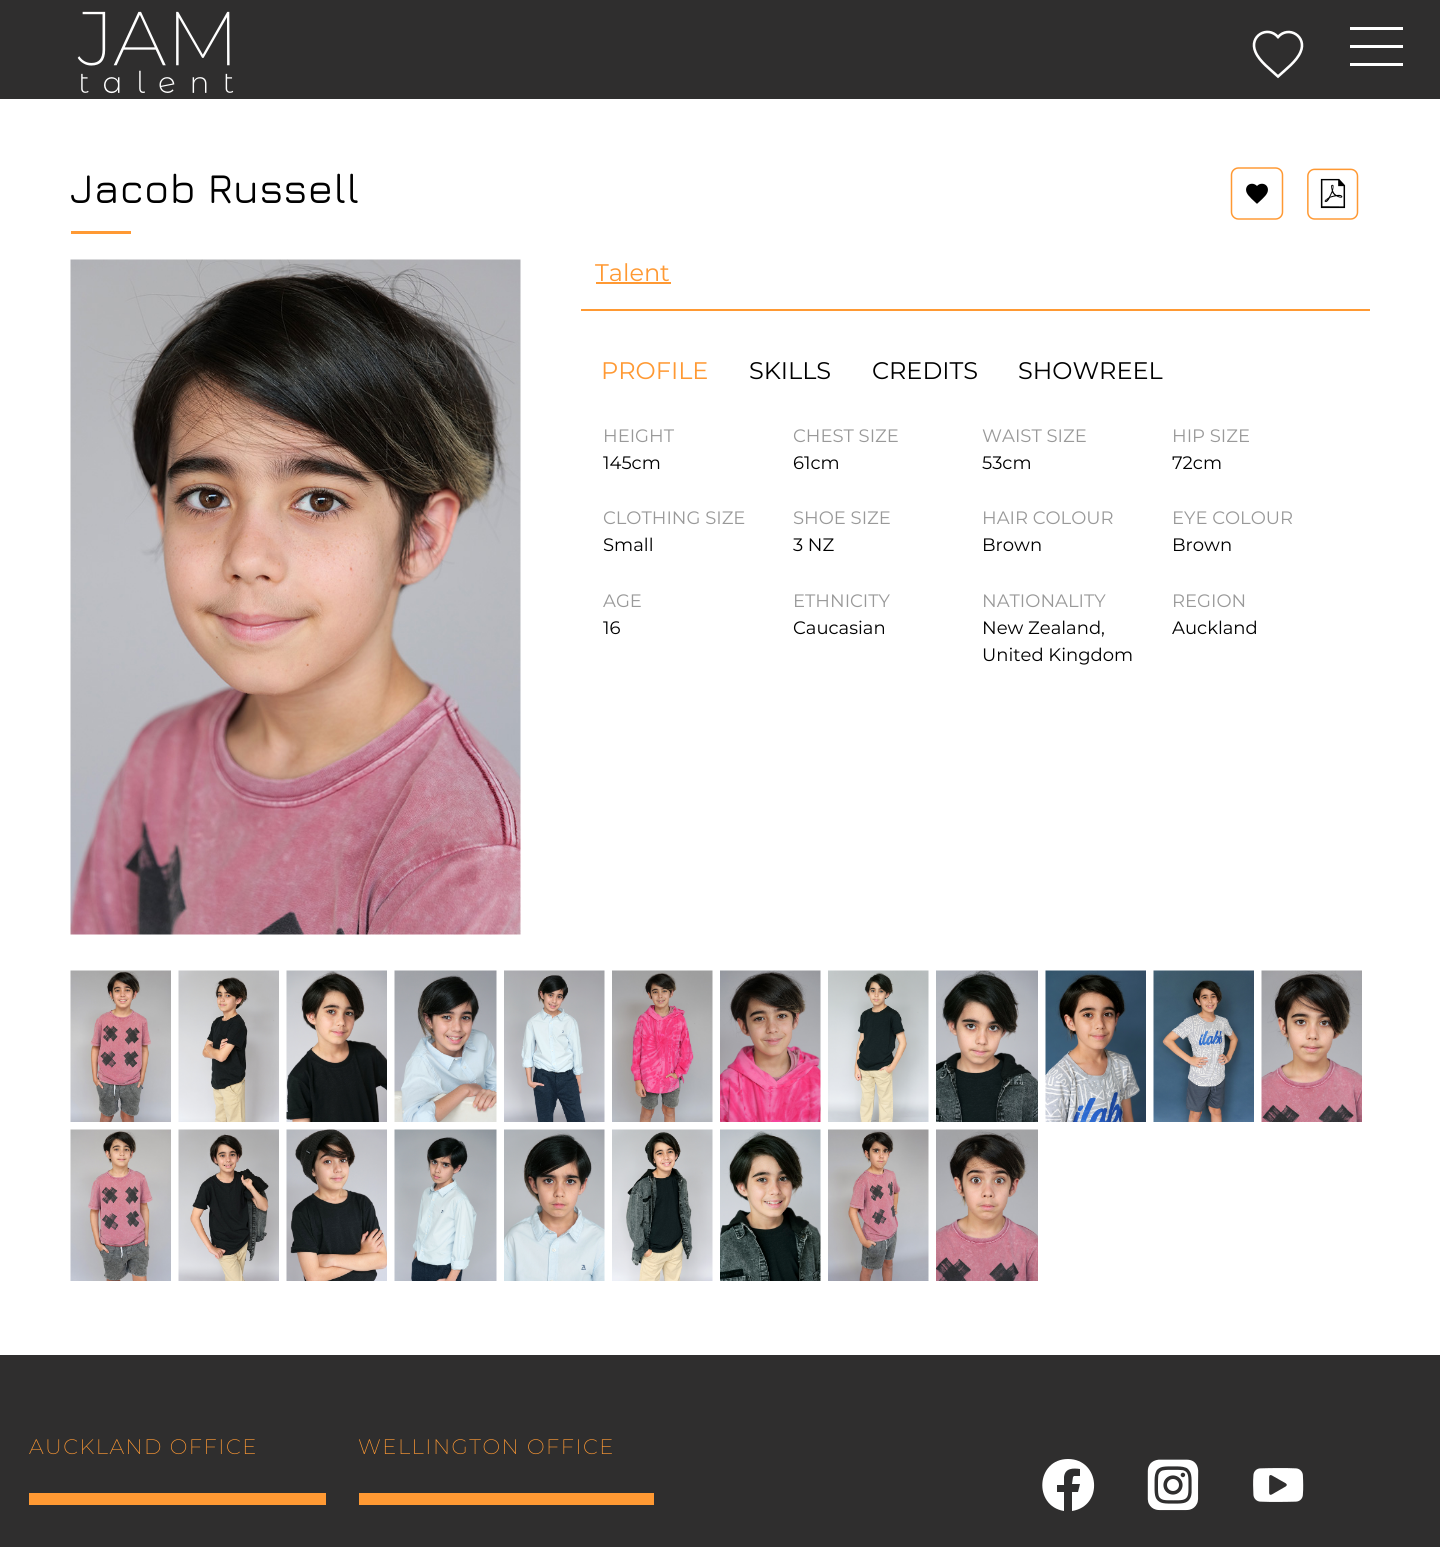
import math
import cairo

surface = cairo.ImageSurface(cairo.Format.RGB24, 1440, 1547)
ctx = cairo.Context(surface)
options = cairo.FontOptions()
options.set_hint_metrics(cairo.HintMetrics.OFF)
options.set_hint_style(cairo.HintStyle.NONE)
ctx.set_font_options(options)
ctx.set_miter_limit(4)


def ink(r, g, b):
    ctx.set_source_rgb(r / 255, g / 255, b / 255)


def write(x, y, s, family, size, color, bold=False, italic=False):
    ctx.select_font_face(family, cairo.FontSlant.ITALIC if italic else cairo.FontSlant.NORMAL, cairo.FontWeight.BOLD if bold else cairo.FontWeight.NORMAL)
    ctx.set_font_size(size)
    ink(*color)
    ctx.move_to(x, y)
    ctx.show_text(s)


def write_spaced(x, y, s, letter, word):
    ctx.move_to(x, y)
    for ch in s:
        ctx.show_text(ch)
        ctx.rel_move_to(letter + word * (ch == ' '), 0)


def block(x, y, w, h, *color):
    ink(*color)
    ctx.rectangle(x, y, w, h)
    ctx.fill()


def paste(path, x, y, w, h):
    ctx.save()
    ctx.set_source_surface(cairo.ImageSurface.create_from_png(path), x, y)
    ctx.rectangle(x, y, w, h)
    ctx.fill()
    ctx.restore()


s1 = dict(family="Jura Medium", size=42, color=(0, 0, 0))
s2 = dict(family="Montserrat", size=24, color=(255, 153, 51))
s3 = dict(family="Montserrat", size=24, color=(0, 0, 0))
s4 = dict(family="Montserrat", size=18, color=(153, 153, 153))
s5 = dict(family="Montserrat", size=18, color=(0, 0, 0))

ink(255, 255, 255)
ctx.paint()
block(0, 0, 1440, 99, 47, 46, 46)
paste("pic1.png", 77, 11, 157, 83)
ctx.new_path()
ctx.move_to(1278, 76.5)
ctx.curve_to(1270.5, 69.5, 1259.5, 61.5, 1255.5, 52)
ctx.curve_to(1248.5, 36, 1267.5, 25, 1278, 37)
ctx.curve_to(1288.5, 25, 1307.5, 36.5, 1300.5, 52)
ctx.curve_to(1296.5, 61.5, 1285.5, 69.5, 1278, 76.5)
ctx.close_path()
ink(255, 255, 255)
ctx.set_line_width(2.6)
ctx.stroke()
block(1350, 27, 53, 3, 255, 255, 255)
block(1350, 45, 53, 3, 255, 255, 255)
block(1350, 63, 53, 3, 255, 255, 255)
write(70, 203, "Jacob Russell", **s1)
paste("pic2.png", 1230, 167, 54, 53)
paste("pic3.png", 1307, 168, 52, 52)
block(71, 231, 60, 3, 255, 153, 51)
paste("pic4.png", 70, 259, 451, 676)
block(581, 309, 789, 2, 255, 153, 51)
write(595, 281, "Talent", **s2)
block(596, 282, 75, 2, 255, 153, 51)
write(601, 379, "PROFILE", **s2)
write(749, 379, "SKILLS", **s3)
write(872, 379, "CREDITS", **s3)
write(1018, 379, "SHOWREEL", **s3)
write(603, 442, "HEIGHT", **s4)
write(603, 469, "145cm", **s5)
write(793, 442, "CHEST SIZE", **s4)
write(793, 469, "61cm", **s5)
write(982, 442, "WAIST SIZE", **s4)
write(982, 469, "53cm", **s5)
write(1172, 442, "HIP SIZE", **s4)
write(1172, 469, "72cm", **s5)
write(603, 524, "CLOTHING SIZE", **s4)
write(603, 551, "Small", **s5)
write(793, 524, "SHOE SIZE", **s4)
write(793, 551, "3 NZ", **s5)
write(982, 524, "HAIR COLOUR", **s4)
write(982, 551, "Brown", **s5)
write(1172, 524, "EYE COLOUR", **s4)
write(1172, 551, "Brown", **s5)
write(603, 607, "AGE", **s4)
write(603, 634, "16", **s5)
write(793, 607, "ETHNICITY", **s4)
write(793, 634, "Caucasian", **s5)
write(982, 607, "NATIONALITY", **s4)
write(982, 634, "New Zealand,", **s5)
write(982, 661, "United Kingdom", **s5)
write(1172, 607, "REGION", **s4)
write(1172, 634, "Auckland", **s5)
paste("pic5.png", 70, 970, 101, 152)
paste("pic6.png", 178, 970, 101, 152)
paste("pic7.png", 286, 970, 101, 152)
paste("pic8.png", 394, 970, 103, 152)
paste("pic9.png", 504, 970, 101, 152)
paste("pic10.png", 612, 970, 101, 152)
paste("pic11.png", 720, 970, 101, 152)
paste("pic12.png", 828, 970, 101, 152)
paste("pic13.png", 936, 970, 102, 152)
paste("pic14.png", 1045, 970, 101, 152)
paste("pic15.png", 1153, 970, 101, 152)
paste("pic16.png", 1261, 970, 101, 152)
paste("pic17.png", 70, 1129, 101, 152)
paste("pic18.png", 178, 1129, 101, 152)
paste("pic19.png", 286, 1129, 101, 152)
paste("pic20.png", 394, 1129, 103, 152)
paste("pic21.png", 504, 1129, 101, 152)
paste("pic22.png", 612, 1129, 101, 152)
paste("pic23.png", 720, 1129, 101, 152)
paste("pic24.png", 828, 1129, 101, 152)
paste("pic25.png", 936, 1129, 102, 152)
block(0, 1355, 1440, 192, 47, 46, 46)
ctx.select_font_face("Montserrat ExtraLight")
ctx.set_font_size(21)
ink(255, 153, 51)
write_spaced(29, 1454, "AUCKLAND OFFICE", 1.5, 0)
block(29, 1493, 297, 12, 255, 153, 51)
write_spaced(358, 1454, "WELLINGTON OFFICE", 1.5, 0)
block(359, 1493, 295, 12, 255, 153, 51)
ink(255, 255, 255)
ctx.set_fill_rule(cairo.FillRule.EVEN_ODD)
ctx.new_path()
ctx.move_to(1068, 1459)
ctx.curve_to(1036, 1459, 1033, 1506, 1064, 1511)
ctx.line_to(1064, 1492)
ctx.line_to(1057, 1492)
ctx.line_to(1057, 1485)
ctx.line_to(1064, 1485)
ctx.line_to(1064, 1477)
ctx.curve_to(1065, 1468, 1073, 1468, 1080, 1469)
ctx.line_to(1080, 1476)
ctx.line_to(1074, 1476)
ctx.line_to(1073, 1477)
ctx.line_to(1072, 1484)
ctx.line_to(1080, 1484)
ctx.line_to(1078, 1492)
ctx.line_to(1072, 1492)
ctx.line_to(1072, 1511)
ctx.curve_to(1104, 1506, 1100, 1459, 1068, 1459)
ctx.close_path()
ctx.fill()
paste("pic26.png", 1147, 1459, 52, 52)
paste("pic27.png", 1253, 1468, 51, 34)
surface.write_to_png("screenshot.png")
